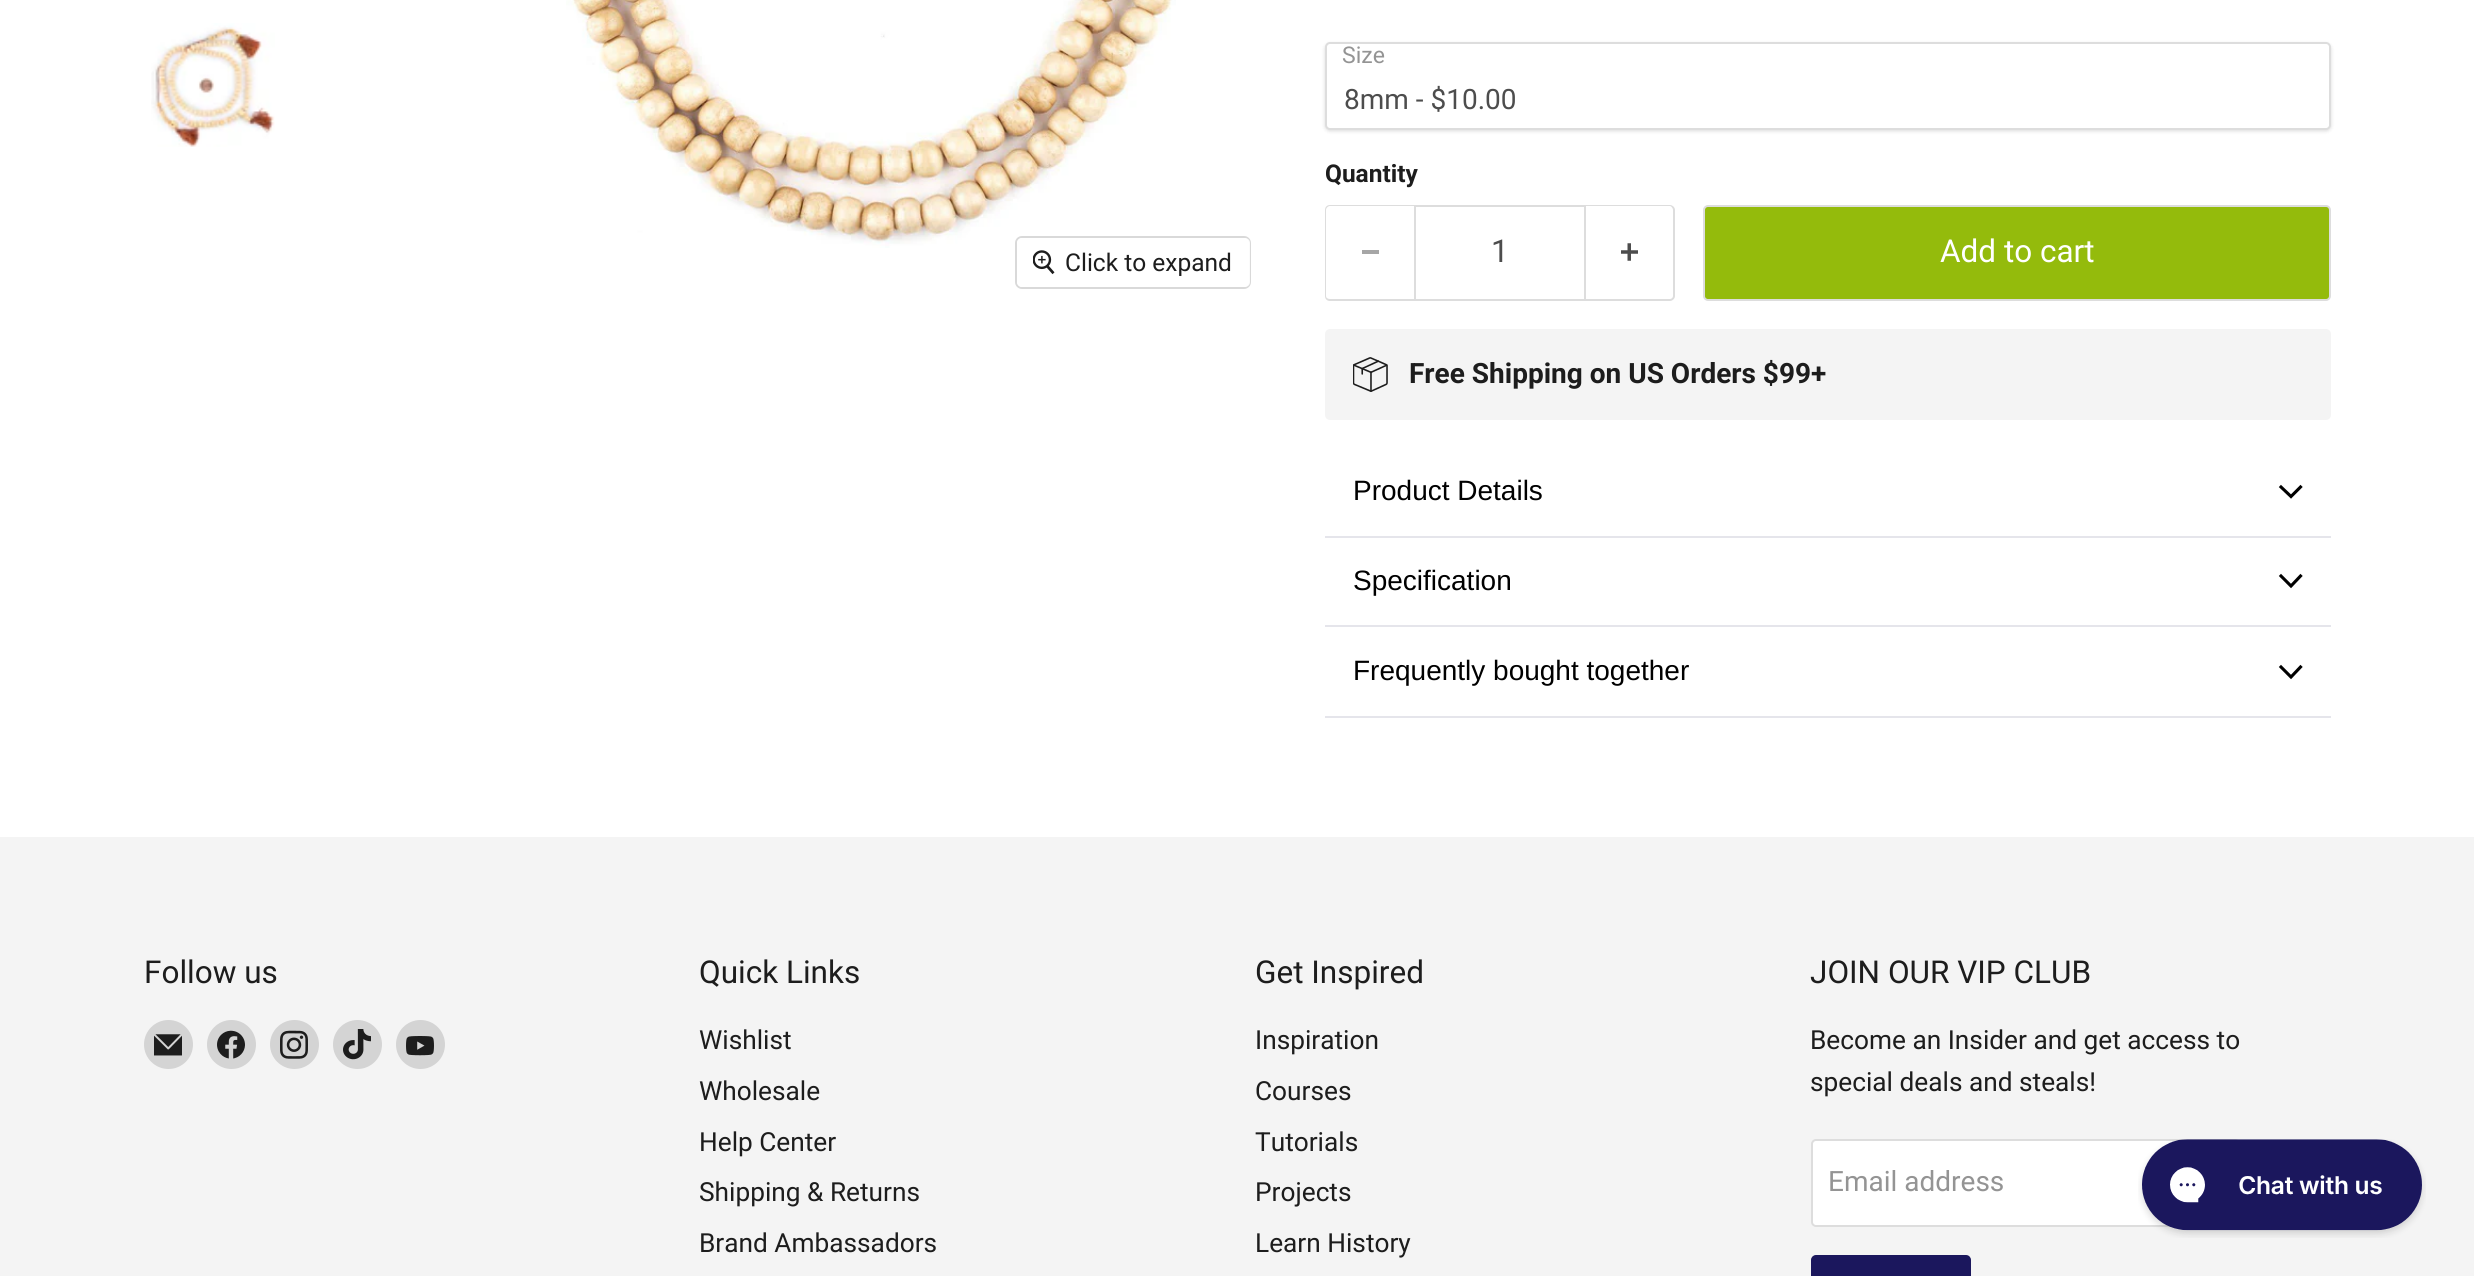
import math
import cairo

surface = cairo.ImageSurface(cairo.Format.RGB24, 2474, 1276)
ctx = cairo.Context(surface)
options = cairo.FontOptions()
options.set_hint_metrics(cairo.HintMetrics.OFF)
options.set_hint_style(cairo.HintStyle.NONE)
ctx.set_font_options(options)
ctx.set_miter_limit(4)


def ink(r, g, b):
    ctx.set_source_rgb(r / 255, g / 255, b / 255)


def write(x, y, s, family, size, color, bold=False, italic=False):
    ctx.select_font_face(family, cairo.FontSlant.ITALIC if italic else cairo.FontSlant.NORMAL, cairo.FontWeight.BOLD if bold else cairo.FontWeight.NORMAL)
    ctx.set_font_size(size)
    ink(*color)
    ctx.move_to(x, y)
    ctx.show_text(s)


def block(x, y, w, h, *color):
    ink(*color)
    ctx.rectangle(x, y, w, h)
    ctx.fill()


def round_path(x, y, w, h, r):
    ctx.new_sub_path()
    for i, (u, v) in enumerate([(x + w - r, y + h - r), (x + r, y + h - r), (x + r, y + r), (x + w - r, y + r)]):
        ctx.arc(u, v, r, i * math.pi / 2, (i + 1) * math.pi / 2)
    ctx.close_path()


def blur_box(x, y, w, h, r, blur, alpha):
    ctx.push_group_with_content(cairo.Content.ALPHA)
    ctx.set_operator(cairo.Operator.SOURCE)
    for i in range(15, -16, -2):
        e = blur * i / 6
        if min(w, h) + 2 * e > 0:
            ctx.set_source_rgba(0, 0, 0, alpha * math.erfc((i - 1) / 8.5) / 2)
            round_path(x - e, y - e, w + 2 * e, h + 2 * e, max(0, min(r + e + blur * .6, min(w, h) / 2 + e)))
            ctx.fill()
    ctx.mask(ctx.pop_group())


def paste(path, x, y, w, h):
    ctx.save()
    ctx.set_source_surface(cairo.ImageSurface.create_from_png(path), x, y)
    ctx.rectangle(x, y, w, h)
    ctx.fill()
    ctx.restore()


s1 = dict(family="Roboto", size=24.5, color=(29, 29, 29))
s2 = dict(family="Roboto", size=23, color=(148, 148, 148))
s3 = dict(family="Roboto", size=28, color=(77, 77, 77))
s4 = dict(family="Roboto", size=24.5, color=(29, 29, 29), bold=True)
s5 = dict(family="Roboto", size=31.5, color=(77, 77, 77))
s6 = dict(family="Roboto", size=31.5, color=(255, 255, 255))
s7 = dict(family="Roboto", size=28, color=(29, 29, 29), bold=True)
s8 = dict(family="Liberation Sans", size=28, color=(0, 0, 0))
s9 = dict(family="Roboto", size=31.5, color=(29, 29, 29))
s10 = dict(family="Roboto", size=26.25, color=(29, 29, 29))
s11 = dict(family="Roboto", size=28, color=(148, 148, 148))

ink(255, 255, 255)
ctx.paint()
paste("pic1.png", 151, 23, 124, 124)
paste("pic2.png", 566, 0, 610, 248)
round_path(1016, 237, 234, 51, 6)
ink(217, 217, 217)
ctx.stroke()
ctx.set_source_rgba(1, 1, 1, 0.9)
round_path(1017, 238, 233, 49, 5)
ctx.fill()
paste("pic3.png", 1033, 250, 22, 25)
write(1065, 271, "Click to expand", **s1)
ink(0, 0, 0)
blur_box(1325, 44, 1006, 87, 5, 2, 0.15)
ink(255, 255, 255)
round_path(1326, 43, 1004, 86, 4)
ctx.fill_preserve()
ink(221, 221, 221)
ctx.stroke()
write(1342, 63, "Size", **s2)
write(1344, 109, "8mm - $10.00", **s3)
write(1325, 182, "Quantity", **s4)
ink(221, 221, 221)
ctx.set_fill_rule(cairo.FillRule.EVEN_ODD)
ctx.new_path()
ctx.move_to(1330, 205)
ctx.line_to(1414, 205)
ctx.line_to(1414, 301)
ctx.line_to(1330, 301)
ctx.curve_to(1327, 301, 1325, 299, 1325, 296)
ctx.line_to(1325, 210)
ctx.curve_to(1325, 207, 1327, 205, 1330, 205)
ctx.close_path()
ctx.move_to(1330, 206)
ctx.line_to(1414, 206)
ctx.line_to(1414, 299)
ctx.line_to(1330, 299)
ctx.curve_to(1328, 299, 1326, 298, 1326, 296)
ctx.line_to(1326, 210)
ctx.curve_to(1326, 208, 1328, 206, 1330, 206)
ctx.close_path()
ctx.fill()
block(1362, 250, 17, 4, 166, 166, 166)
ctx.rectangle(1415, 206, 170, 94)
ink(221, 221, 221)
ctx.stroke()
write(1491, 262, "1", **s5)
ink(221, 221, 221)
ctx.new_path()
ctx.move_to(1586, 205)
ctx.line_to(1670, 205)
ctx.curve_to(1672, 205, 1675, 207, 1675, 210)
ctx.line_to(1675, 296)
ctx.curve_to(1675, 299, 1672, 301, 1670, 301)
ctx.line_to(1586, 301)
ctx.close_path()
ctx.move_to(1586, 206)
ctx.line_to(1670, 206)
ctx.curve_to(1671, 206, 1673, 208, 1673, 210)
ctx.line_to(1673, 296)
ctx.curve_to(1673, 298, 1671, 299, 1670, 299)
ctx.line_to(1586, 299)
ctx.close_path()
ctx.fill()
paste("pic4.png", 1621, 243, 17, 18)
ink(148, 187, 12)
round_path(1704, 206, 626, 94, 4)
ctx.fill_preserve()
ink(221, 221, 221)
ctx.stroke()
write(1940, 262, "Add to cart", **s6)
ink(244, 244, 244)
round_path(1325, 329, 1006, 91, 5)
ctx.fill()
paste("pic5.png", 1353, 357, 35, 35)
write(1409, 383, "Free Shipping on US Orders $99+", **s7)
block(1325, 536, 1006, 2, 229, 229, 235)
write(1353, 500, "Product Details", **s8)
ctx.new_path()
ctx.move_to(2291, 496.5)
ctx.line_to(2300.5, 487)
ctx.move_to(2291, 496.5)
ctx.line_to(2281, 487)
ctx.set_line_width(3.1)
ctx.set_line_cap(cairo.LineCap.SQUARE)
ctx.stroke()
block(1325, 625, 1006, 2, 229, 229, 235)
write(1353, 590, "Specification", **s8)
ctx.new_path()
ctx.move_to(2291, 586)
ctx.line_to(2300.5, 576)
ctx.move_to(2291, 586)
ctx.line_to(2281, 576)
ctx.stroke()
block(1325, 716, 1006, 2, 229, 229, 235)
write(1353, 680, "Frequently bought together", **s8)
ctx.new_path()
ctx.move_to(2291, 677)
ctx.line_to(2300.5, 667)
ctx.move_to(2291, 677)
ctx.line_to(2281, 667)
ctx.stroke()
block(0, 837, 2474, 439, 244, 244, 244)
write(144, 983, "Follow us", **s9)
ink(212, 212, 212)
ctx.new_path()
ctx.arc(168.5, 1044.5, 24.5, 0, 2 * math.pi)
ctx.fill()
paste("pic6.png", 154, 1034, 28, 22)
ctx.arc(231.5, 1044.5, 24.5, 0, 2 * math.pi)
ctx.fill()
paste("pic7.png", 217, 1030, 28, 29)
ctx.arc(294.5, 1044.5, 24.5, 0, 2 * math.pi)
ctx.fill()
paste("pic8.png", 280, 1030, 28, 29)
ctx.arc(357.5, 1044.5, 24.5, 0, 2 * math.pi)
ctx.fill()
paste("pic9.png", 343, 1029, 28, 31)
ctx.arc(420.5, 1044.5, 24.5, 0, 2 * math.pi)
ctx.fill()
paste("pic10.png", 406, 1036, 28, 20)
write(699, 983, "Quick Links", **s9)
write(699, 1049, "Wishlist", **s10)
write(699, 1100, "Wholesale", **s10)
write(699, 1151, "Help Center", **s10)
write(699, 1201, "Shipping & Returns", **s10)
write(699, 1252, "Brand Ambassadors", **s10)
write(1255, 983, "Get Inspired", **s9)
write(1255, 1049, "Inspiration", **s10)
write(1255, 1100, "Courses", **s10)
write(1255, 1151, "Tutorials", **s10)
write(1255, 1201, "Projects", **s10)
write(1255, 1252, "Learn History", **s10)
write(1810, 983, "JOIN OUR VIP CLUB", **s9)
write(1810, 1049, "Become an Insider and get access to", **s10)
write(1810, 1091, "special deals and steals!", **s10)
ink(255, 255, 255)
round_path(1812, 1140, 427, 86, 4)
ctx.fill_preserve()
ink(221, 221, 221)
ctx.set_line_width(2)
ctx.set_line_cap(cairo.LineCap.BUTT)
ctx.stroke()
write(1828, 1191, "Email address", **s11)
ink(27, 23, 93)
round_path(1812, 1256, 158, 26, 4)
ctx.fill_preserve()
ctx.stroke()
paste("pic11.png", 2138, 1139, 288, 99)
surface.write_to_png("screenshot.png")
